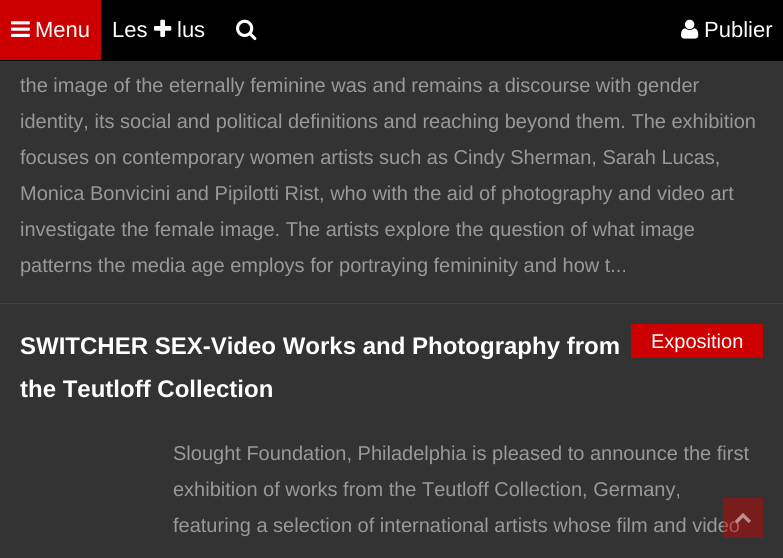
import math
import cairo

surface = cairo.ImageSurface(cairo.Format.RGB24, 783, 558)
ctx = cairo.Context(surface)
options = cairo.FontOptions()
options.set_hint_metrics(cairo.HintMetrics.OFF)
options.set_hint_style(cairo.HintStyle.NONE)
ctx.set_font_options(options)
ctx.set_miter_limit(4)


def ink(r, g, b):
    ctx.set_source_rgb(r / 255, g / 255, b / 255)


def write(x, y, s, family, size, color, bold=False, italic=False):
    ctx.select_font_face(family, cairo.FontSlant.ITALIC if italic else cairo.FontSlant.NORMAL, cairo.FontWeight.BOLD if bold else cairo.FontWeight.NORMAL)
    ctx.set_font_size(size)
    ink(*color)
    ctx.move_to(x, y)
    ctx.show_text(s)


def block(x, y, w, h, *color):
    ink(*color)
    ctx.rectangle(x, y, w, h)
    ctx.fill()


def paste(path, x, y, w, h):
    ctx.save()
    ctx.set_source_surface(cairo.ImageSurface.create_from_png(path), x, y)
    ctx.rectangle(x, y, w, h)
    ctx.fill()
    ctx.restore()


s1 = dict(family="Liberation Sans", size=22, color=(255, 255, 255))
s2 = dict(family="Liberation Sans", size=20, color=(153, 153, 153))
s3 = dict(family="Liberation Sans", size=24, color=(255, 255, 255), bold=True)
s4 = dict(family="Liberation Sans", size=20, color=(255, 255, 255))

ink(51, 51, 51)
ctx.paint()
block(0, 0, 783, 61, 0, 0, 0)
block(0, 0, 101, 60, 204, 0, 0)
paste("pic1.png", 11, 21, 19, 16)
write(35, 37, "Menu", **s1)
write(112, 37, "Les", **s1)
paste("pic2.png", 154, 19, 18, 18)
write(177, 37, "lus", **s1)
paste("pic3.png", 236, 19, 21, 22)
paste("pic4.png", 681, 19, 18, 20)
write(704, 37, "Publier", **s1)
block(0, 303, 783, 1, 68, 68, 68)
write(20, 92, "the image of the eternally feminine was and remains a discourse with gender", **s2)
write(20, 128, "identity, its social and political definitions and reaching beyond them. The exhibition", **s2)
write(20, 164, "focuses on contemporary women artists such as Cindy Sherman, Sarah Lucas,", **s2)
write(20, 200, "Monica Bonvicini and Pipilotti Rist, who with the aid of photography and video art", **s2)
write(20, 236, "investigate the female image. The artists explore the question of what image", **s2)
write(20, 272, "patterns the media age employs for portraying femininity and how t...", **s2)
write(20, 354, "SWITCHER SEX-Video Works and Photography from", **s3)
write(20, 397, "the Teutloff Collection", **s3)
block(631, 324, 132, 34, 204, 0, 0)
write(651, 348, "Exposition", **s4)
write(173, 460, "Slought Foundation, Philadelphia is pleased to announce the first", **s2)
write(173, 496, "exhibition of works from the Teutloff Collection, Germany,", **s2)
write(173, 532, "featuring a selection of international artists whose film and video", **s2)
ctx.set_source_rgba(0.8, 0, 0, 0.45)
ctx.rectangle(723, 498, 40, 40)
ctx.fill()
paste("pic5.png", 735, 513, 16, 10)
surface.write_to_png("screenshot.png")
